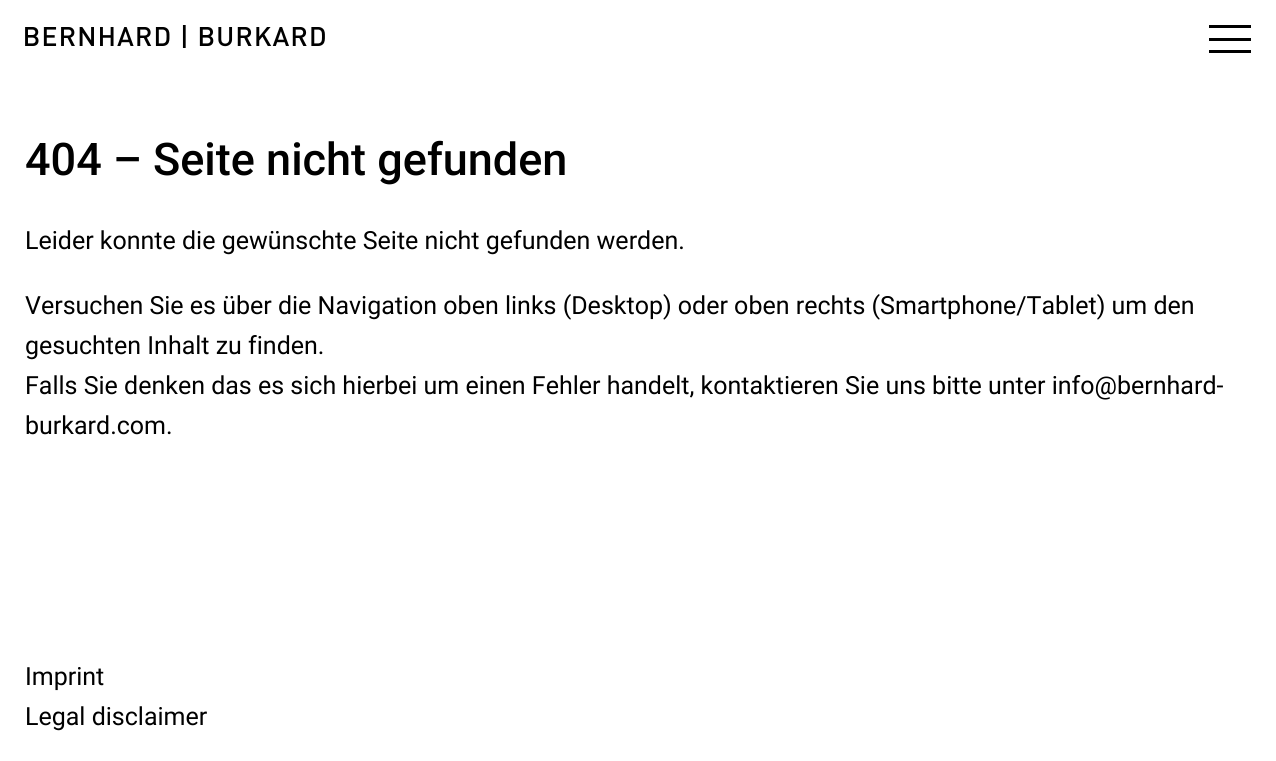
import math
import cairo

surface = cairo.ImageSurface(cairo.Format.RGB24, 1276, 761)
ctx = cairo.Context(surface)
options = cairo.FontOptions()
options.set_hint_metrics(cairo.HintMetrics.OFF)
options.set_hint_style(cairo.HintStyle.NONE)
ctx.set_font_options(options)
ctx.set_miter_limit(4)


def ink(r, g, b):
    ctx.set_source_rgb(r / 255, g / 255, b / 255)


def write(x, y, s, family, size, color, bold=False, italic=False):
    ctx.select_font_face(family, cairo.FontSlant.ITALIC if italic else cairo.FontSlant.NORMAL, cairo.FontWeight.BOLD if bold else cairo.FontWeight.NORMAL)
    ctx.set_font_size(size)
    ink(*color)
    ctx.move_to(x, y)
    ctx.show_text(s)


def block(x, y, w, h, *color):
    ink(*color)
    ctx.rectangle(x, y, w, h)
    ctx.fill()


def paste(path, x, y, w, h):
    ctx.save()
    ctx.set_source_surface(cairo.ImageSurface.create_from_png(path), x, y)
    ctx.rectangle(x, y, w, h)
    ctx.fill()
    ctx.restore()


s1 = dict(family="Roboto Medium", size=45, color=(0, 0, 0))
s2 = dict(family="Roboto", size=25, color=(0, 0, 0))

ink(255, 255, 255)
ctx.paint()
paste("pic1.png", 25, 25, 300, 23)
block(1209, 38, 42, 3, 0, 0, 0)
block(1209, 25, 42, 3, 0, 0, 0)
block(1209, 50, 42, 3, 0, 0, 0)
write(25, 175, "404 – Seite nicht gefunden", **s1)
write(25, 249, "Leider konnte die gewünschte Seite nicht gefunden werden.", **s2)
write(25, 314, "Versuchen Sie es über die Navigation oben links (Desktop) oder oben rechts (Smartphone/Tablet) um den", **s2)
write(25, 354, "gesuchten Inhalt zu finden.", **s2)
write(25, 394, "Falls Sie denken das es sich hierbei um einen Fehler handelt, kontaktieren Sie uns bitte unter info@bernhard-", **s2)
write(25, 434, "burkard.com.", **s2)
write(25, 685, "Imprint", **s2)
write(25, 725, "Legal disclaimer", **s2)
surface.write_to_png("screenshot.png")
